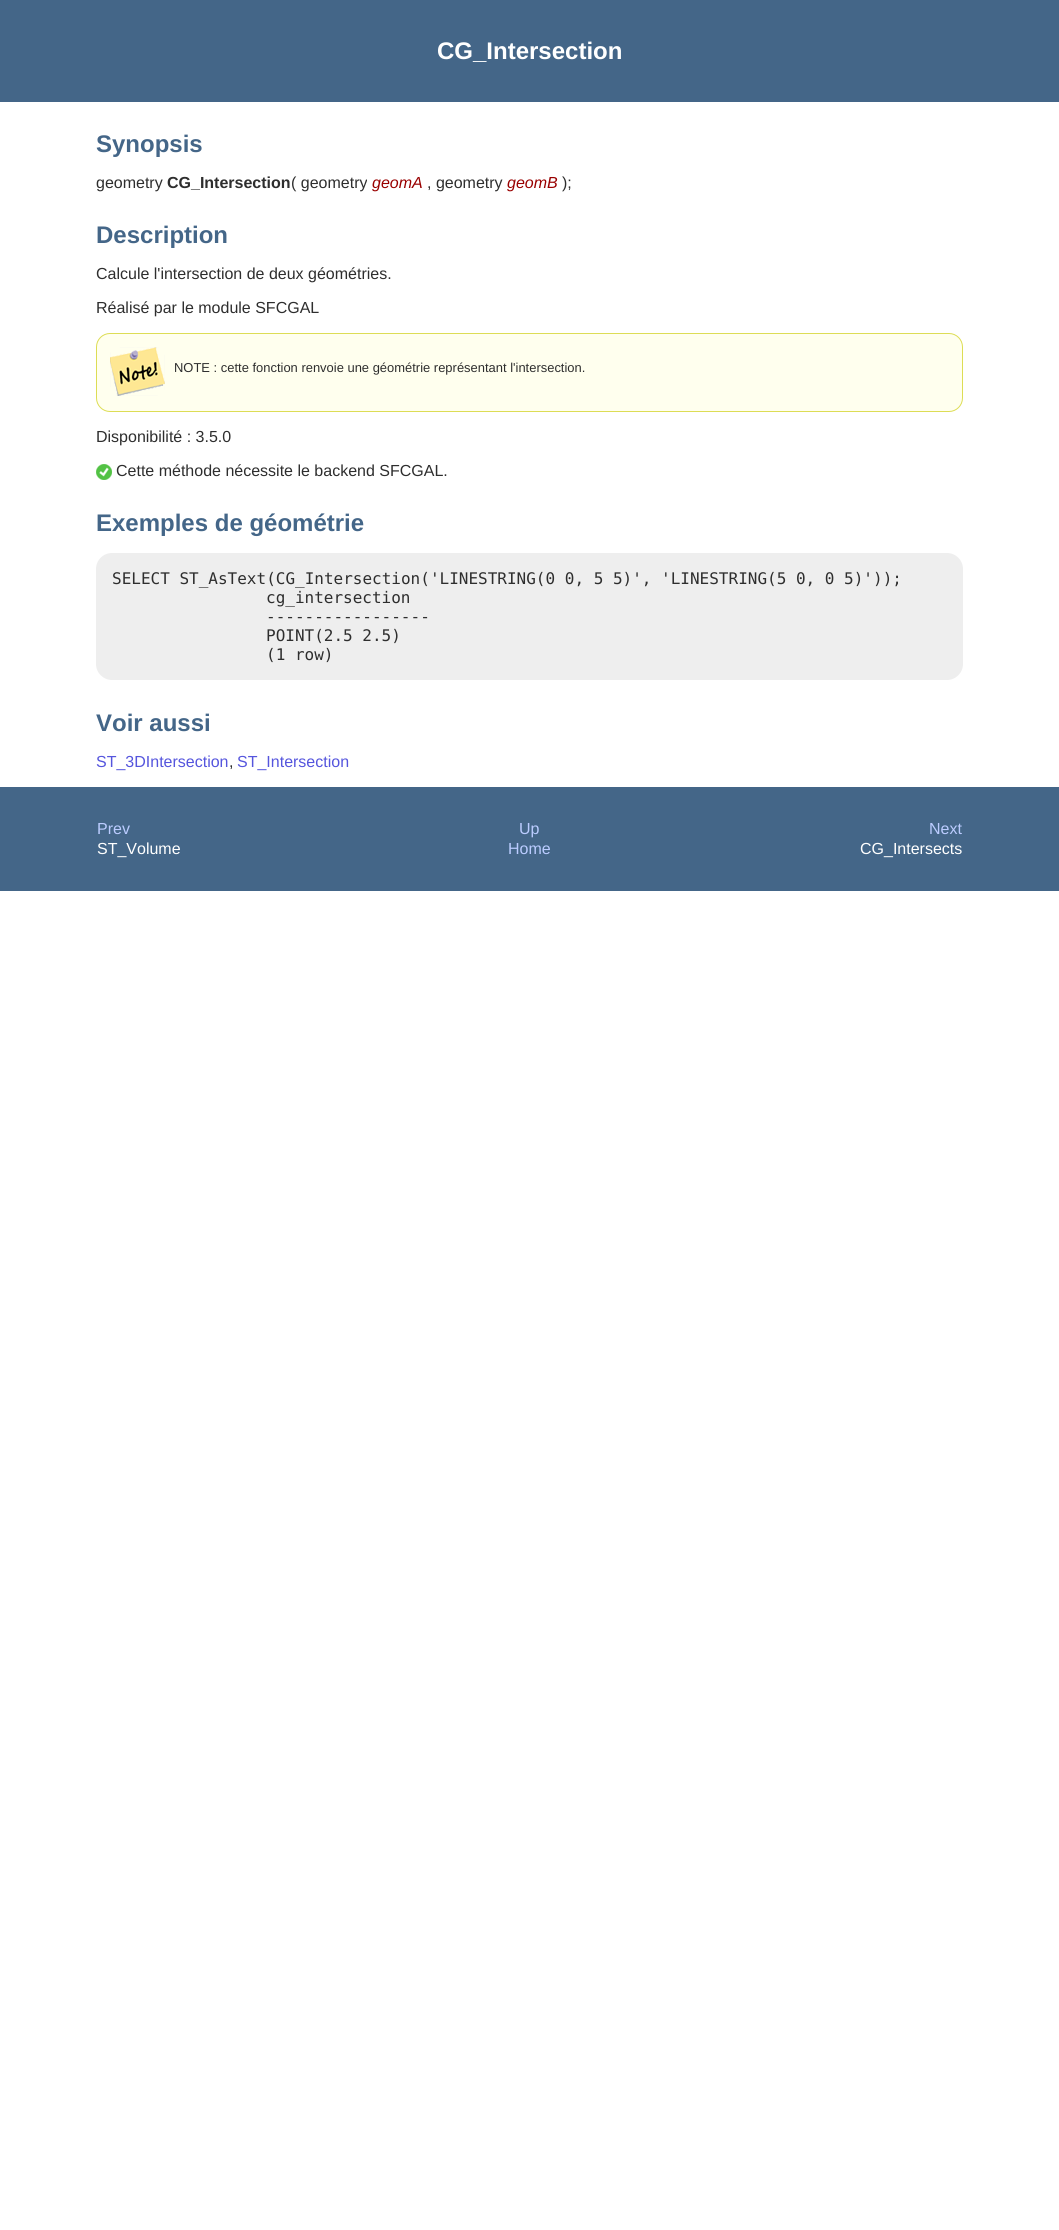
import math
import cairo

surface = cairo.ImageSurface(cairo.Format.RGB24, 1059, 2230)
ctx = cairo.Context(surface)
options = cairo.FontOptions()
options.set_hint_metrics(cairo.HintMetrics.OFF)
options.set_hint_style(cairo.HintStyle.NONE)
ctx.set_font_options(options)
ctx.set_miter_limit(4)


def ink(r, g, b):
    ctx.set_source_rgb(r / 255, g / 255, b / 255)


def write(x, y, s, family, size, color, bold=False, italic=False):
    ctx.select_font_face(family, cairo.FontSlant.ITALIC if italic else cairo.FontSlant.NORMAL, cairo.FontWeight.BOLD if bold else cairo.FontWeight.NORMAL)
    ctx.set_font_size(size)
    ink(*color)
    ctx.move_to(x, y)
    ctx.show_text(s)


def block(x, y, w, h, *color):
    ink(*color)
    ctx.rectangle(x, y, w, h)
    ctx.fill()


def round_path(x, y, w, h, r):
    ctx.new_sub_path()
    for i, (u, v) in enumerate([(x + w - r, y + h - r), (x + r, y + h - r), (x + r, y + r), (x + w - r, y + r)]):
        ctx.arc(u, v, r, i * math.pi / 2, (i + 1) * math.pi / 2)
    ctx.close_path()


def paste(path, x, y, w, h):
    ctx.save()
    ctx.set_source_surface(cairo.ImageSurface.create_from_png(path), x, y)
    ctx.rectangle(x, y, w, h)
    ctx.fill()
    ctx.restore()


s1 = dict(family="Liberation Sans", size=24, color=(255, 255, 255), bold=True)
s2 = dict(family="Liberation Sans", size=24, color=(68, 102, 136), bold=True)
s3 = dict(family="Liberation Sans", size=16, color=(46, 46, 46))
s4 = dict(family="Liberation Sans", size=16, color=(46, 46, 46), bold=True)
s5 = dict(family="Liberation Sans", size=16, color=(153, 0, 0), italic=True)
s6 = dict(family="Liberation Sans", size=12.95, color=(46, 46, 46))
s7 = dict(family="DejaVu Sans Mono", size=16, color=(46, 46, 46))
s8 = dict(family="Liberation Sans", size=16, color=(85, 85, 221))
s9 = dict(family="Liberation Sans", size=16, color=(187, 204, 255))
s10 = dict(family="Liberation Sans", size=16, color=(255, 255, 255))

ink(255, 255, 255)
ctx.paint()
block(0, 0, 1059, 102, 68, 102, 136)
write(437, 59, "CG_Intersection", **s1)
write(96, 152, "Synopsis", **s2)
write(96, 188, "geometry", **s3)
write(167, 188, "CG_Intersection", **s4)
write(291, 188, "( geometry", **s3)
write(372, 188, "geomA", **s5)
write(427, 188, ", geometry", **s3)
write(507, 188, "geomB", **s5)
write(562, 188, ");", **s3)
write(96, 243, "Description", **s2)
write(96, 279, "Calcule l'intersection de deux géométries.", **s3)
write(96, 313, "Réalisé par le module SFCGAL", **s3)
ink(255, 255, 238)
round_path(96.5, 333.5, 866, 78, 13.5)
ctx.fill_preserve()
ink(221, 221, 85)
ctx.set_line_width(1)
ctx.stroke()
paste("pic1.png", 110, 347, 55, 49)
write(174, 372, "NOTE : cette fonction renvoie une géométrie représentant l'intersection.", **s6)
write(96, 442, "Disponibilité : 3.5.0", **s3)
paste("pic2.png", 96, 464, 16, 16)
write(116, 476, "Cette méthode nécessite le backend SFCGAL.", **s3)
write(96, 531, "Exemples de géométrie", **s2)
ink(238, 238, 238)
round_path(96, 553, 867, 127, 16)
ctx.fill()
write(112, 584, "SELECT ST_AsText(CG_Intersection('LINESTRING(0 0, 5 5)', 'LINESTRING(5 0, 0 5)'));", **s7)
write(266, 603, "cg_intersection", **s7)
write(266, 622, "-----------------", **s7)
write(266, 641, "POINT(2.5 2.5)", **s7)
write(266, 660, "(1 row)", **s7)
write(96, 731, "Voir aussi", **s2)
write(96, 767, "ST_3DIntersection", **s8)
write(229, 767, ",", **s3)
write(237, 767, "ST_Intersection", **s8)
block(0, 787, 1059, 104, 68, 102, 136)
write(97, 834, "Prev", **s9)
write(519, 834, "Up", **s9)
write(929, 834, "Next", **s9)
write(97, 854, "ST_Volume", **s10)
write(508, 854, "Home", **s9)
write(860, 854, "CG_Intersects", **s10)
surface.write_to_png("screenshot.png")
